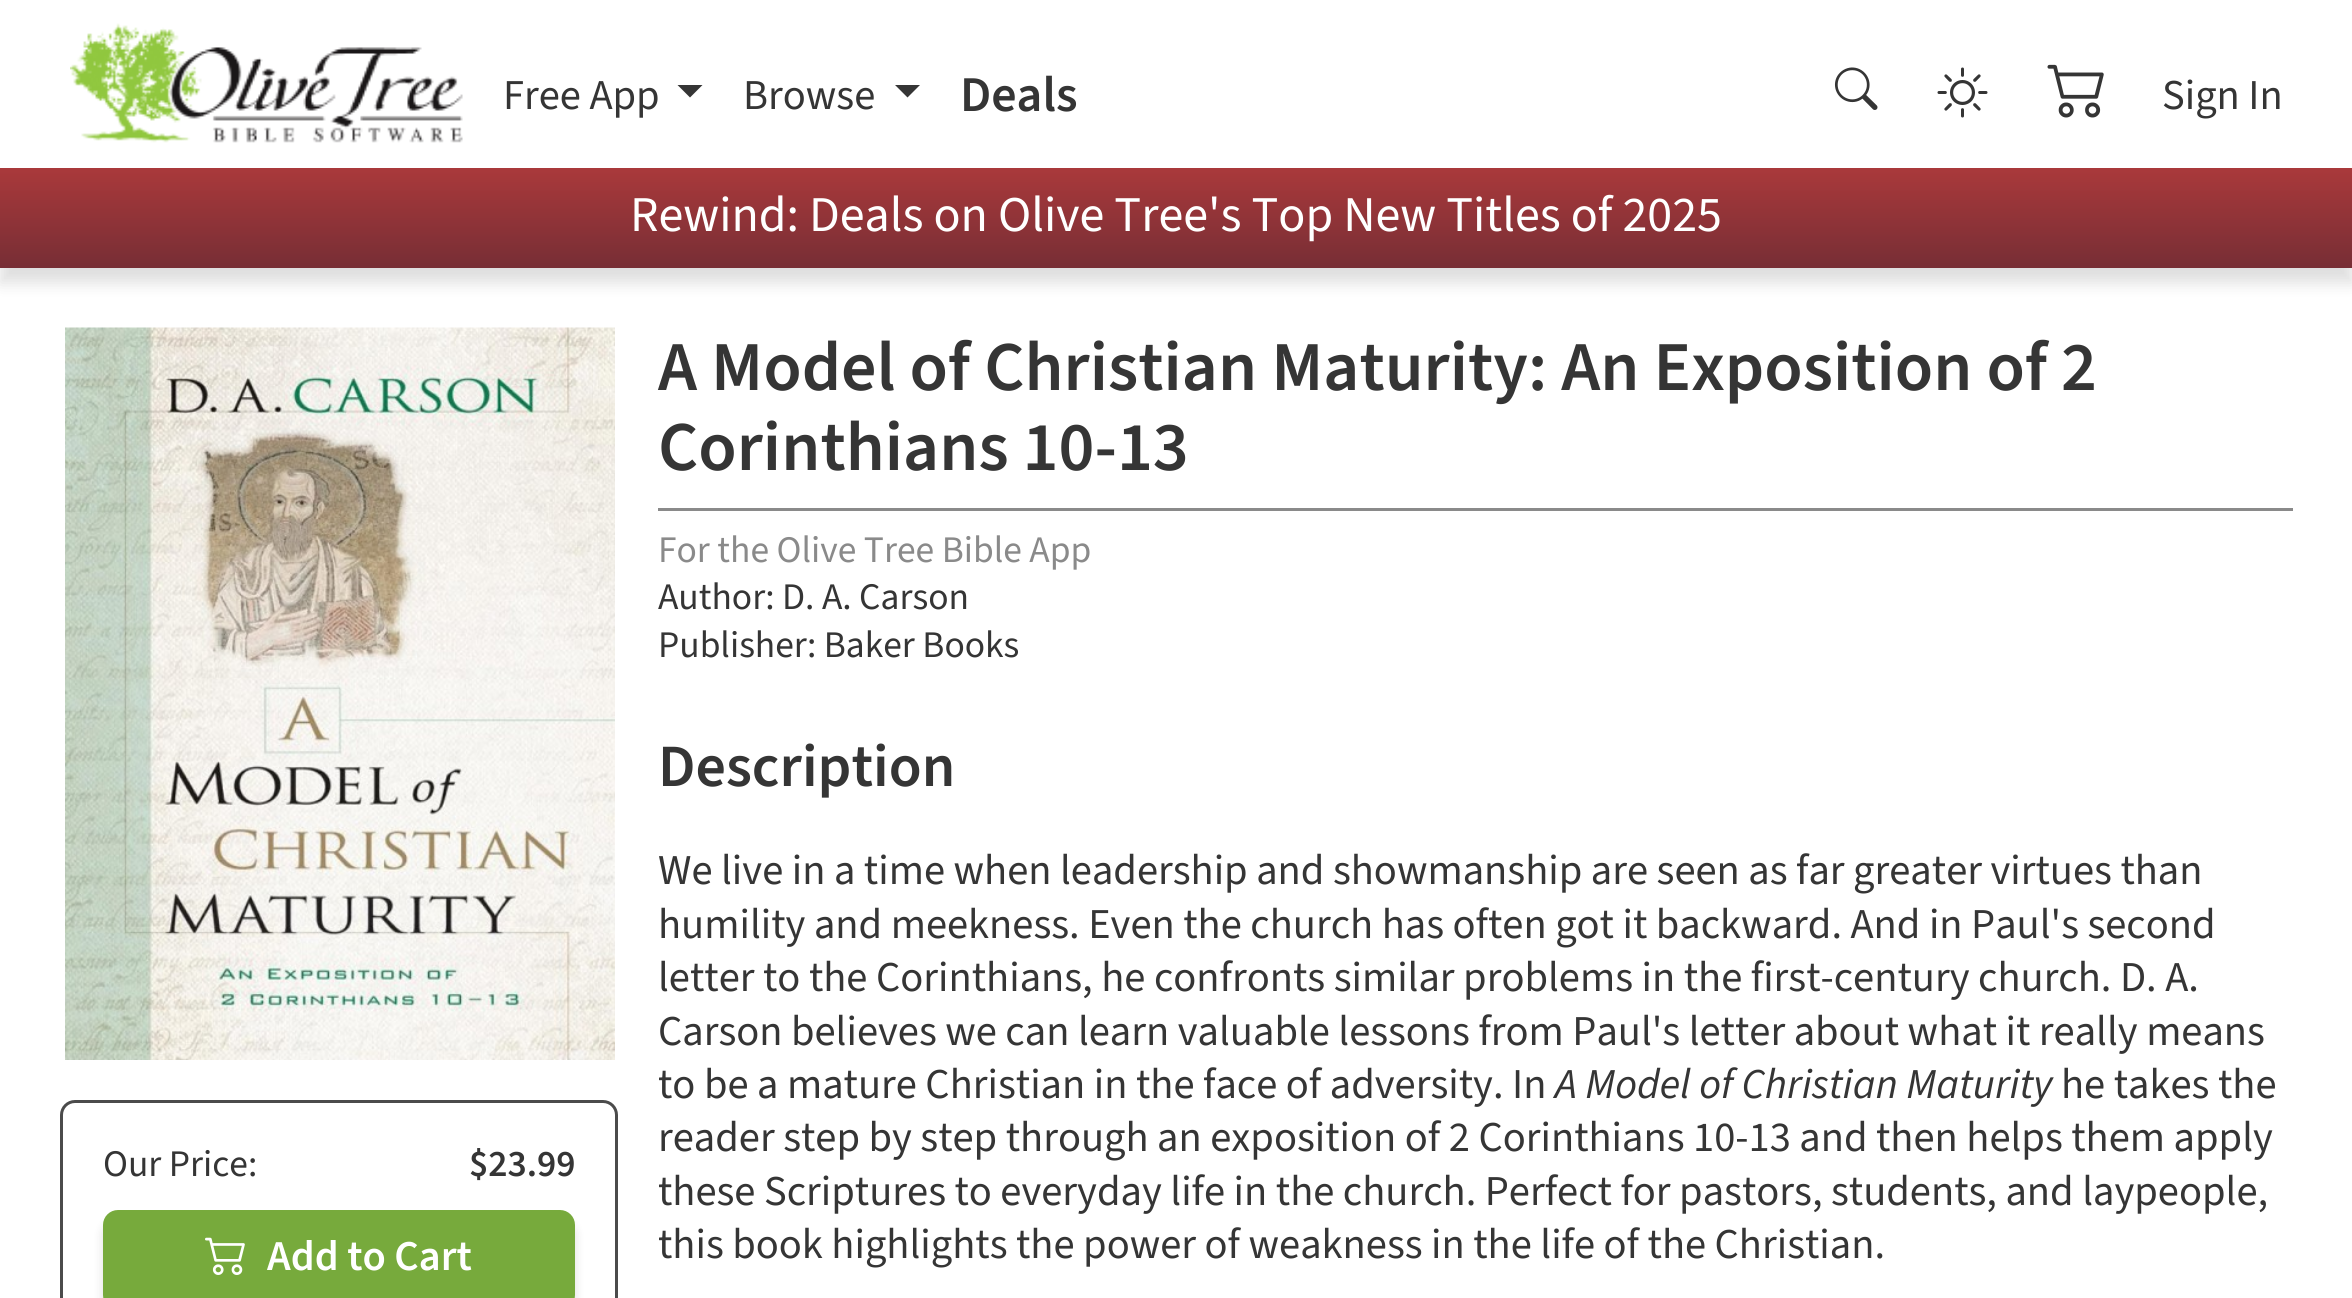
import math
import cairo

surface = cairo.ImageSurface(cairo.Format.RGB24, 2352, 1298)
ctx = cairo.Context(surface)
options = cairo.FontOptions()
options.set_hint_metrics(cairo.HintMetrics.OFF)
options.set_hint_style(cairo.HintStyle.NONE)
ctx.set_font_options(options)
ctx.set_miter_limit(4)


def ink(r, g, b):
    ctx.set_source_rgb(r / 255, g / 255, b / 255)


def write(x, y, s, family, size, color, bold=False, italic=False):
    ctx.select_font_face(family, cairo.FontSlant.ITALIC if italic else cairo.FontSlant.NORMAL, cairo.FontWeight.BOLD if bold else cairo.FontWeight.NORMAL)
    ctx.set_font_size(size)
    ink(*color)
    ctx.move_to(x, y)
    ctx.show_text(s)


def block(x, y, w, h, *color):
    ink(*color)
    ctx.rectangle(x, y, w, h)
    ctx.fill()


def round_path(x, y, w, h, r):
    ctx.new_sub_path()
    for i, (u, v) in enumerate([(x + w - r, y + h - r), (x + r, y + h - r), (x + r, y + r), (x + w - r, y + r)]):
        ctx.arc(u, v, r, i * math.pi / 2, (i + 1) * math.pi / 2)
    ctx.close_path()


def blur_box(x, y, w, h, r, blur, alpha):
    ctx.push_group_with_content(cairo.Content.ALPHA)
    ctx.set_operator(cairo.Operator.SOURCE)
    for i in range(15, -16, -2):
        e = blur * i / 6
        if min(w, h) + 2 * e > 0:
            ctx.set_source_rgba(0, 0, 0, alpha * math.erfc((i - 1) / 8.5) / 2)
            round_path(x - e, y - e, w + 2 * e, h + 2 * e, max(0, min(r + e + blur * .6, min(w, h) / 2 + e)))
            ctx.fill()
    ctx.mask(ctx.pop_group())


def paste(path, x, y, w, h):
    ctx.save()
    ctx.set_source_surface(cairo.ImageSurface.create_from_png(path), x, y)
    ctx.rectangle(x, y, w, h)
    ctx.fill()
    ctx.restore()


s1 = dict(family="Source Sans 3", size=42.5, color=(53, 53, 53))
s2 = dict(family="Source Sans 3 SemiBold", size=50, color=(53, 53, 53))
s3 = dict(family="Source Sans 3", size=50, color=(255, 255, 255))
s4 = dict(family="Source Sans 3", size=37.5, color=(53, 53, 53))
s5 = dict(family="Source Sans 3 SemiBold", size=37.5, color=(53, 53, 53))
s6 = dict(family="Source Sans 3 SemiBold", size=42.5, color=(255, 255, 255))
s7 = dict(family="Source Sans 3 SemiBold", size=70, color=(53, 53, 53))
s8 = dict(family="Source Sans 3", size=37.5, color=(138, 138, 138))
s9 = dict(family="Source Sans 3 SemiBold", size=60, color=(53, 53, 53))
s10 = dict(family="Source Sans 3", size=42.5, color=(53, 53, 53), italic=True)

ink(255, 255, 255)
ctx.paint()
paste("pic1.png", 70, 23, 393, 120)
write(503, 109, "Free App", **s1)
ctx.new_path()
ctx.move_to(677.5, 85)
ctx.line_to(702.5, 85)
ctx.line_to(690, 97.5)
ctx.close_path()
ctx.fill()
write(743, 109, "Browse", **s1)
ctx.new_path()
ctx.move_to(895, 85)
ctx.line_to(920, 85)
ctx.line_to(907.5, 97.5)
ctx.close_path()
ctx.fill()
write(960, 111, "Deals", **s2)
paste("pic2.png", 1834, 67, 44, 43)
paste("pic3.png", 1937, 67, 51, 51)
paste("pic4.png", 2047, 64, 57, 54)
write(2162, 109, "Sign In", **s1)
ink(0, 0, 0)
blur_box(0, 183, 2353, 100, 0, 7.5, 0.13)
gradient = cairo.LinearGradient(1176, 167, 1176, 268)
gradient.add_color_stop_rgba(0, 0.667, 0.224, 0.231, 1)
gradient.add_color_stop_rgba(1, 0.467, 0.18, 0.208, 1)
ctx.set_source(gradient)
ctx.rectangle(0, 168, 2352, 100)
ctx.fill()
write(630, 231, "Rewind: Deals on Olive Tree's Top New Titles of 2025", **s3)
paste("pic5.png", 65, 327, 550, 733)
round_path(61.5, 1101.5, 555, 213, 13.5)
ink(75, 75, 75)
ctx.set_line_width(3)
ctx.stroke()
write(103, 1176, "Our Price:", **s4)
write(469, 1176, "$23.99", **s5)
ink(0, 0, 0)
blur_box(103, 1220, 472, 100, 15, 5, 0.13)
ink(119, 170, 60)
round_path(104.5, 1211.5, 469, 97, 13.5)
ctx.fill_preserve()
ctx.stroke()
paste("pic6.png", 205, 1237, 40, 38)
write(267, 1270, "Add to Cart", **s6)
write(658, 390, "A Model of Christian Maturity: An Exposition of 2", **s7)
write(658, 470, "Corinthians 10-13", **s7)
block(658, 508, 1635, 3, 138, 138, 138)
write(658, 562, "For the Olive Tree Bible App", **s8)
write(658, 609, "Author: D. A. Carson", **s4)
write(658, 657, "Publisher: Baker Books", **s4)
write(658, 786, "Description", **s9)
write(658, 884, "We live in a time when leadership and showmanship are seen as far greater virtues than", **s1)
write(658, 938, "humility and meekness. Even the church has often got it backward. And in Paul's second", **s1)
write(658, 991, "letter to the Corinthians, he confronts similar problems in the first-century church. D. A.", **s1)
write(658, 1045, "Carson believes we can learn valuable lessons from Paul's letter about what it really means", **s1)
write(658, 1098, "to be a mature Christian in the face of adversity. In", **s1)
write(1555, 1098, "A Model of Christian Maturity", **s10)
write(2061, 1098, "he takes the", **s1)
write(658, 1151, "reader step by step through an exposition of 2 Corinthians 10-13 and then helps them apply", **s1)
write(658, 1205, "these Scriptures to everyday life in the church. Perfect for pastors, students, and laypeople,", **s1)
write(658, 1258, "this book highlights the power of weakness in the life of the Christian.", **s1)
surface.write_to_png("screenshot.png")
